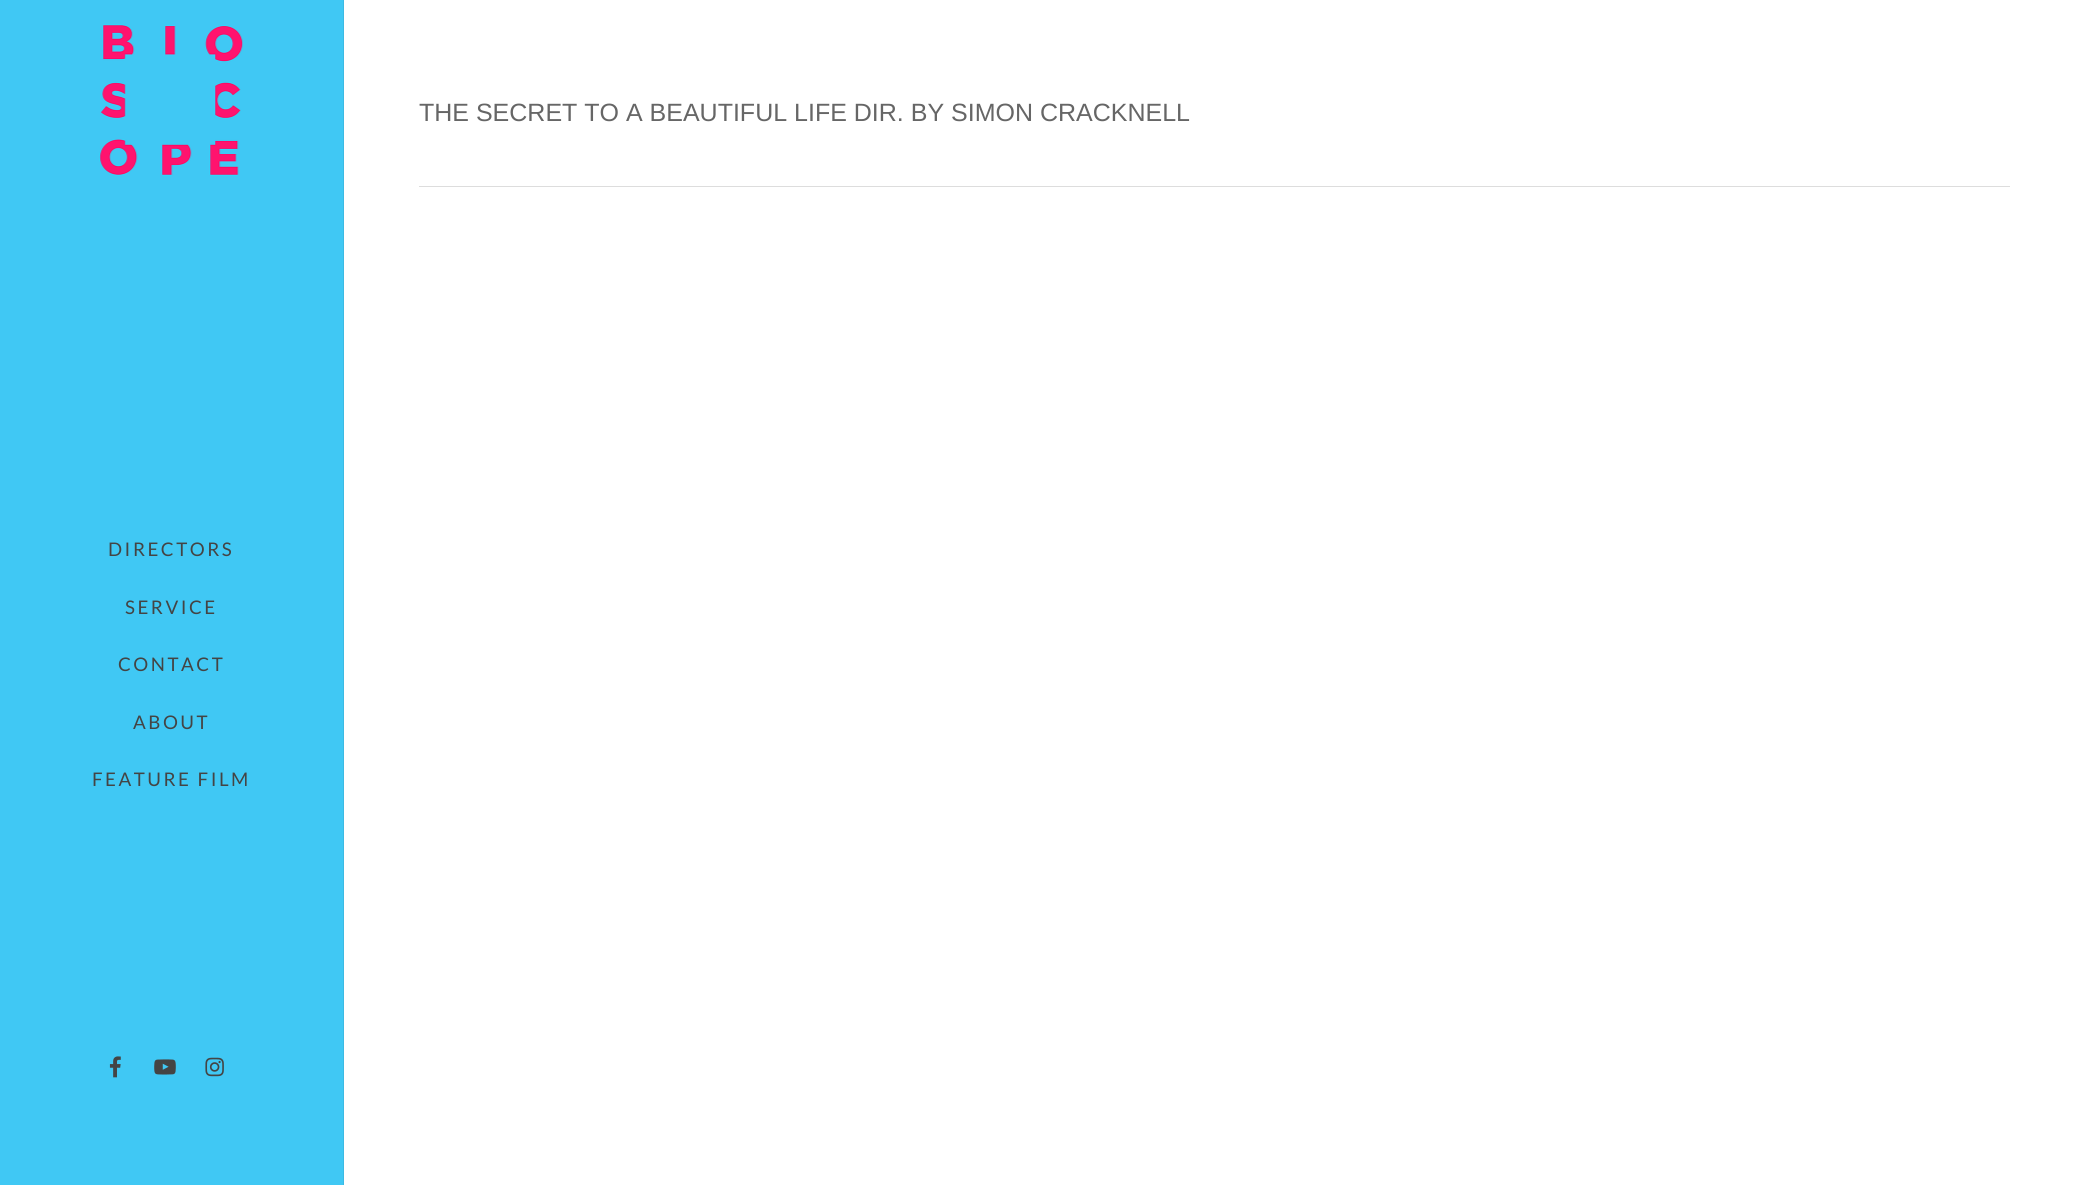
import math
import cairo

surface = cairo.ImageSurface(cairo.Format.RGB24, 2084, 1185)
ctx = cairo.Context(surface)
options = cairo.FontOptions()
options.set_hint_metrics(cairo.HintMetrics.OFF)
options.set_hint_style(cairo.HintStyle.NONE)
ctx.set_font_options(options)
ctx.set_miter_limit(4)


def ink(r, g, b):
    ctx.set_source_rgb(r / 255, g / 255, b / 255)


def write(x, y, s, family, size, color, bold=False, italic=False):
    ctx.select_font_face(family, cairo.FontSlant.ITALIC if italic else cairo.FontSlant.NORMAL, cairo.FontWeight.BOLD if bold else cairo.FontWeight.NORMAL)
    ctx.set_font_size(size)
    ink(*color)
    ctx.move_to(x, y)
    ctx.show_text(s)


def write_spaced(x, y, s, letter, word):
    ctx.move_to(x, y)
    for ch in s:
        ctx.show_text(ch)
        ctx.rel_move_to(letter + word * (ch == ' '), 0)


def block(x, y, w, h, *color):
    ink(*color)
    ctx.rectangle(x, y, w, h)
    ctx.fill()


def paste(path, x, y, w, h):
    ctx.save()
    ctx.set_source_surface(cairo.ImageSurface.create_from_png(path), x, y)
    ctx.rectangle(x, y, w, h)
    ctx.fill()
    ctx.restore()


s1 = dict(family="Liberation Sans", size=25, color=(102, 102, 102))

ink(255, 255, 255)
ctx.paint()
block(419, 186, 1591, 1, 221, 221, 221)
write(419, 121, "THE SECRET TO A BEAUTIFUL LIFE DIR. BY SIMON CRACKNELL", **s1)
block(0, 0, 343, 1185, 64, 200, 244)
block(343, 0, 1, 1185, 60, 186, 227)
paste("pic1.png", 99, 24, 144, 152)
ctx.select_font_face("Lato")
ctx.set_font_size(18.75)
ink(68, 68, 68)
write_spaced(108, 556, "DIRECTORS", 2.5, 0)
write_spaced(125, 614, "SERVICE", 2.5, 0)
write_spaced(118, 671, "CONTACT", 2.5, 0)
write_spaced(133, 729, "ABOUT", 2.5, 0)
write_spaced(92, 786, "FEATURE FILM", 2.5, 0)
paste("pic2.png", 109, 1056, 12, 22)
paste("pic3.png", 154, 1059, 22, 16)
paste("pic4.png", 205, 1057, 19, 20)
surface.write_to_png("screenshot.png")
